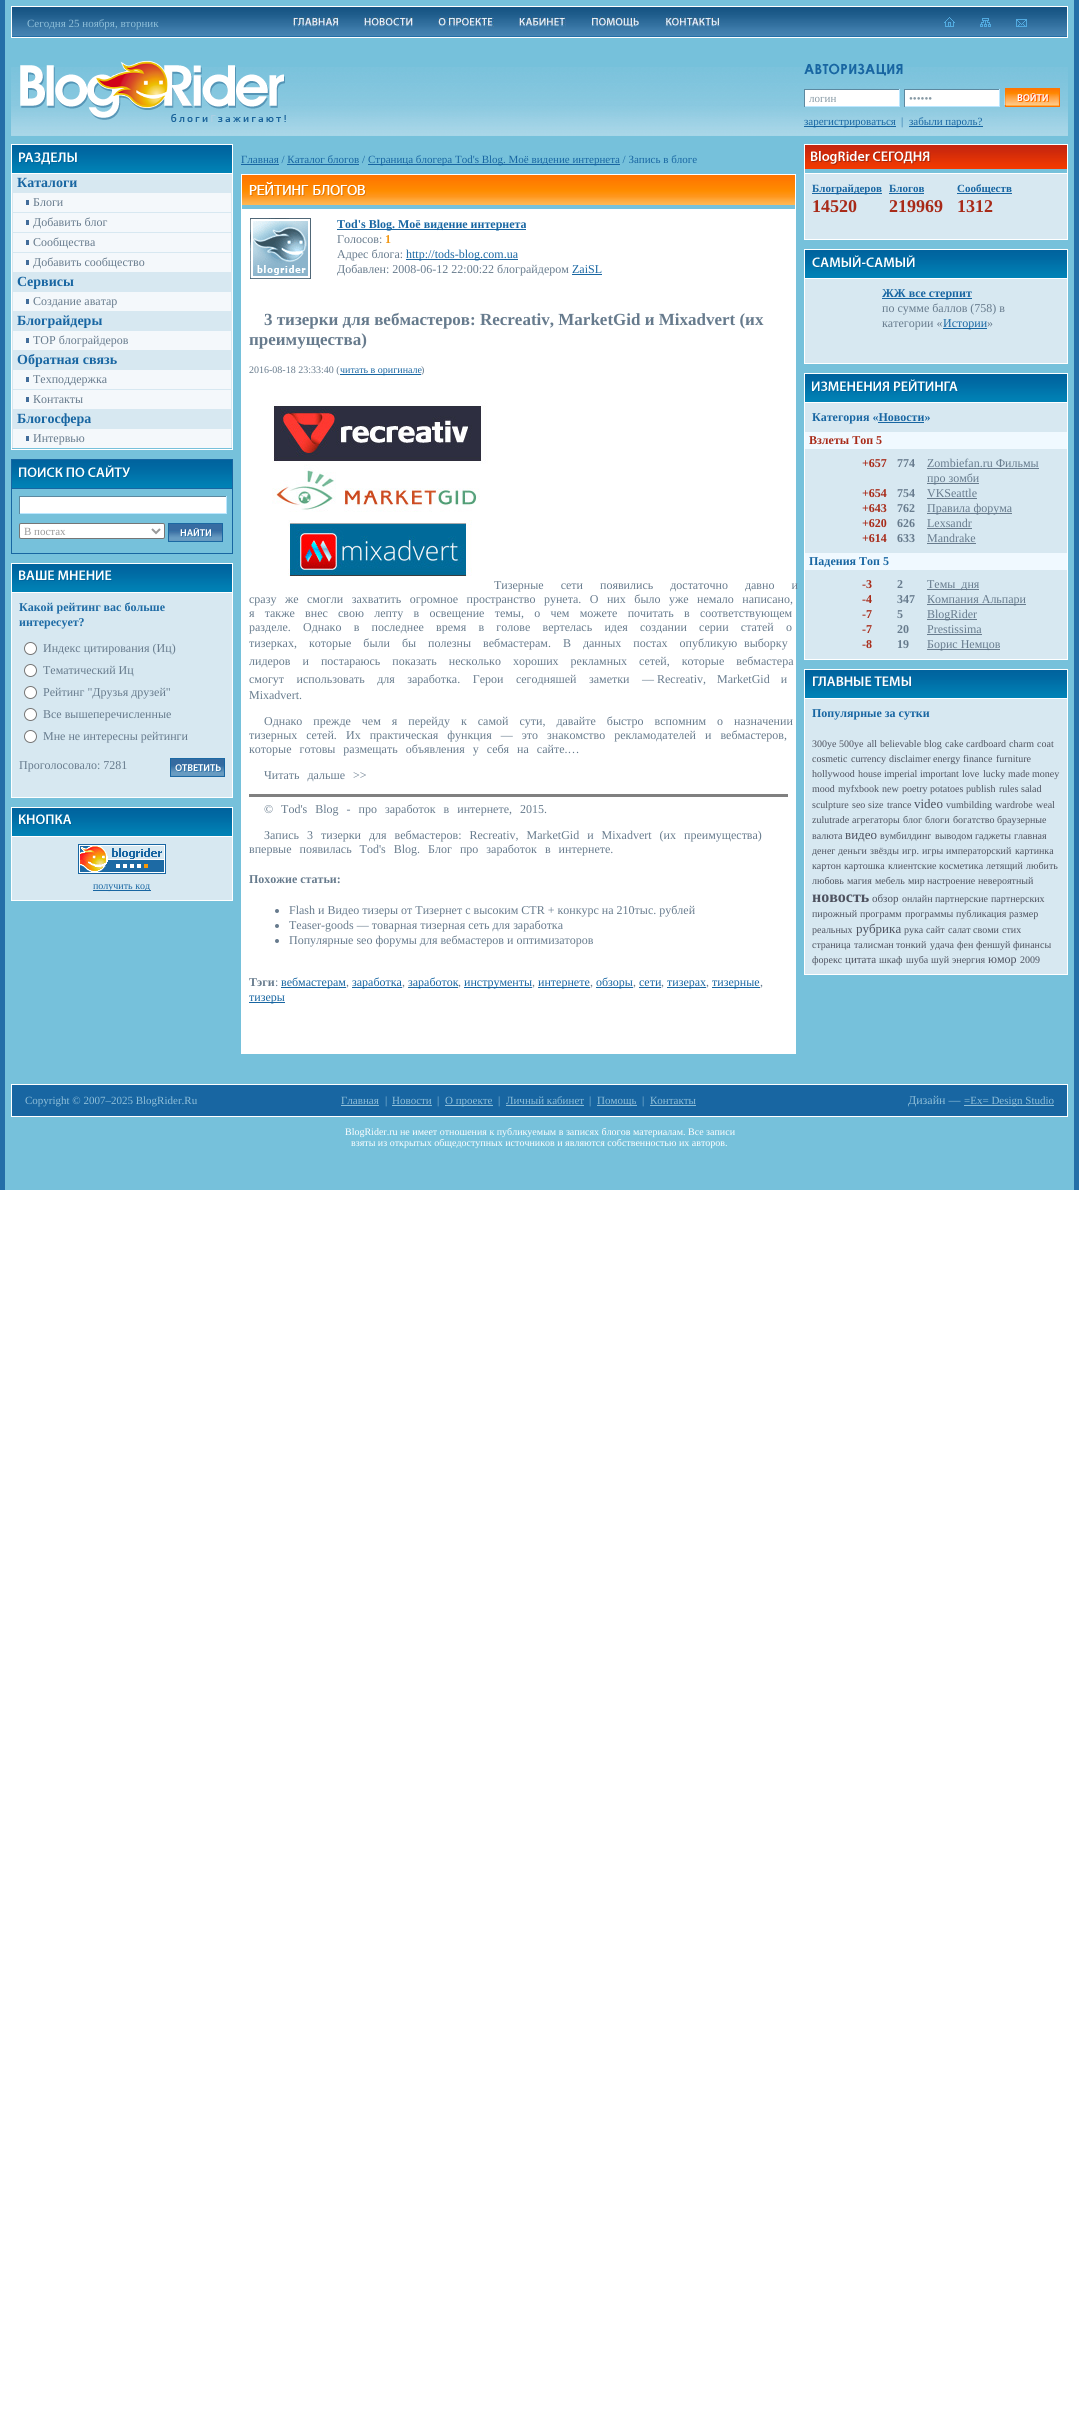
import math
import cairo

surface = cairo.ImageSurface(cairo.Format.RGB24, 1079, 2409)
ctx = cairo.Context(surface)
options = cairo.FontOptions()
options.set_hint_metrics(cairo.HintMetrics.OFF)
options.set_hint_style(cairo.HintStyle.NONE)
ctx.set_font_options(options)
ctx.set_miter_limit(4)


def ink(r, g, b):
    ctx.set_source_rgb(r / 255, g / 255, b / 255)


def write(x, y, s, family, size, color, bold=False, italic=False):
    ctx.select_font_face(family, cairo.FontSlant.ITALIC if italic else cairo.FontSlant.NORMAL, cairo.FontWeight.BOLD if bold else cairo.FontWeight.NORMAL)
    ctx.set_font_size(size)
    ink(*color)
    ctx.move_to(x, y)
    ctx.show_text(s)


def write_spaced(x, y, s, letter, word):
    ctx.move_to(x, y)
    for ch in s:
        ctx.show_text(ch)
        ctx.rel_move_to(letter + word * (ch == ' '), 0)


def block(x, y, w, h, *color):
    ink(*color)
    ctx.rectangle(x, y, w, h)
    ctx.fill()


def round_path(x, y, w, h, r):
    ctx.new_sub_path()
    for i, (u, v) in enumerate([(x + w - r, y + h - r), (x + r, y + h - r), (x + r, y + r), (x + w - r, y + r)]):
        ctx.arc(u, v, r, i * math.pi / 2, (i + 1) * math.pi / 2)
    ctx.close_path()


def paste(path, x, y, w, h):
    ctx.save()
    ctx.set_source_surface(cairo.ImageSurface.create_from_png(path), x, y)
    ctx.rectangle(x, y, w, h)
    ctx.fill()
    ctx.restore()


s1 = dict(family="Liberation Serif", size=11, color=(143, 191, 217))
s2 = dict(family="Liberation Serif", size=11, color=(135, 153, 164))
s3 = dict(family="Liberation Serif", size=11, color=(24, 102, 162))
s4 = dict(family="Liberation Serif", size=11, color=(36, 111, 168))
s5 = dict(family="Liberation Serif", size=14, color=(24, 102, 162), bold=True)
s6 = dict(family="Liberation Serif", size=12, color=(103, 123, 141))
s7 = dict(family="Liberation Serif", size=11, color=(153, 153, 153))
s8 = dict(family="Liberation Serif", size=12, color=(30, 107, 165), bold=True)
s9 = dict(family="Liberation Serif", size=10, color=(24, 102, 162))
s10 = dict(family="Liberation Serif", size=12, color=(24, 102, 162), bold=True)
s11 = dict(family="Liberation Serif", size=12, color=(241, 150, 17), bold=True)
s12 = dict(family="Liberation Serif", size=12, color=(24, 102, 162))
s13 = dict(family="Liberation Serif", size=17, color=(103, 123, 141), bold=True)
s14 = dict(family="Liberation Serif", size=10, color=(103, 123, 141))
s15 = dict(family="Liberation Serif", size=12, color=(103, 123, 141), bold=True)
s16 = dict(family="Liberation Serif", size=11, color=(24, 102, 162), bold=True)
s17 = dict(family="Liberation Serif", size=18, color=(168, 42, 24), bold=True)
s18 = dict(family="Liberation Serif", size=12, color=(168, 42, 24), bold=True)
s19 = dict(family="Liberation Serif", size=10, color=(78, 82, 95))
s20 = dict(family="Liberation Serif", size=13, color=(78, 82, 95))
s21 = dict(family="Liberation Serif", size=16, color=(78, 82, 95), bold=True)
s22 = dict(family="Liberation Serif", size=11, color=(78, 82, 95))
s23 = dict(family="Liberation Serif", size=12, color=(78, 82, 95))
s24 = dict(family="Liberation Serif", size=12, color=(143, 191, 217))
s25 = dict(family="Liberation Serif", size=10, color=(255, 255, 255))

ink(255, 255, 255)
ctx.paint()
block(0, 0, 1079, 1190, 36, 111, 168)
block(5, 0, 1069, 1190, 118, 193, 219)
block(12, 36, 1055, 1, 36, 111, 168)
paste("pic1.png", 12, 7, 1055, 29)
ctx.rectangle(11.5, 6.5, 1056, 31)
ink(255, 255, 255)
ctx.set_line_width(1)
ctx.stroke()
write(27, 27, "Сегодня 25 ноября, вторник", **s1)
paste("pic2.png", 293, 17, 46, 10)
paste("pic3.png", 364, 17, 49, 10)
paste("pic4.png", 438, 17, 56, 10)
paste("pic5.png", 519, 17, 47, 10)
paste("pic6.png", 591, 17, 48, 10)
paste("pic7.png", 665, 17, 55, 10)
paste("pic8.png", 944, 17, 11, 10)
paste("pic9.png", 980, 18, 11, 9)
paste("pic10.png", 1016, 19, 11, 8)
paste("pic11.png", 11, 67, 1057, 69)
paste("pic12.png", 20, 60, 266, 62)
paste("pic13.png", 804, 63, 99, 13)
block(805, 90, 94, 16, 255, 255, 255)
block(804, 89, 96, 1, 93, 137, 160)
block(899, 89, 1, 18, 188, 231, 255)
block(804, 106, 96, 1, 188, 231, 255)
block(804, 89, 1, 18, 93, 137, 160)
write(809, 102, "логин", **s2)
block(905, 90, 94, 16, 255, 255, 255)
block(904, 89, 96, 1, 93, 137, 160)
block(999, 89, 1, 18, 188, 231, 255)
block(904, 106, 96, 1, 188, 231, 255)
block(904, 89, 1, 18, 93, 137, 160)
write(909, 102, "••••••", **s2)
paste("pic14.png", 1004, 88, 56, 19)
block(804, 126, 92, 1, 24, 102, 162)
write(804, 125, "зарегистрироваться", **s3)
write(901, 125, "|", **s4)
block(909, 126, 74, 1, 24, 102, 162)
write(909, 125, "забыли пароль?", **s3)
ctx.rectangle(11.5, 144.5, 221, 305)
ink(255, 255, 255)
ctx.stroke()
paste("pic15.png", 12, 145, 220, 28)
block(12, 173, 220, 1, 255, 255, 255)
paste("pic16.png", 19, 152, 59, 14)
block(12, 174, 220, 274, 215, 232, 241)
write(17, 187, "Каталоги", **s5)
block(13, 193, 218, 19, 244, 248, 251)
write(33, 206, "Блоги", **s6)
block(26, 200, 3, 5, 65, 108, 154)
block(13, 213, 218, 19, 244, 248, 251)
write(33, 226, "Добавить блог", **s6)
block(26, 220, 3, 5, 65, 108, 154)
block(13, 233, 218, 19, 244, 248, 251)
write(33, 246, "Сообщества", **s6)
block(26, 240, 3, 5, 65, 108, 154)
block(13, 253, 218, 19, 244, 248, 251)
write(33, 266, "Добавить сообщество", **s6)
block(26, 260, 3, 5, 65, 108, 154)
write(17, 286, "Сервисы", **s5)
block(13, 292, 218, 19, 244, 248, 251)
write(33, 305, "Создание аватар", **s6)
block(26, 299, 3, 5, 65, 108, 154)
write(17, 325, "Блограйдеры", **s5)
block(13, 331, 218, 19, 244, 248, 251)
write(33, 344, "TOP блограйдеров", **s6)
block(26, 338, 3, 5, 65, 108, 154)
write(17, 364, "Обратная связь", **s5)
block(13, 370, 218, 19, 244, 248, 251)
write(33, 383, "Техподдержка", **s6)
block(26, 377, 3, 5, 65, 108, 154)
block(13, 390, 218, 19, 244, 248, 251)
write(33, 403, "Контакты", **s6)
block(26, 397, 3, 5, 65, 108, 154)
write(17, 423, "Блогосфера", **s5)
block(13, 429, 218, 19, 244, 248, 251)
write(33, 442, "Интервью", **s6)
block(26, 436, 3, 5, 65, 108, 154)
ctx.rectangle(11.5, 459.5, 221, 94)
ink(24, 102, 162)
ctx.stroke()
paste("pic15.png", 12, 460, 220, 28)
block(12, 488, 220, 1, 24, 102, 162)
paste("pic17.png", 19, 465, 112, 13)
block(20, 497, 206, 16, 255, 255, 255)
block(19, 496, 208, 1, 93, 137, 160)
block(226, 496, 1, 18, 188, 231, 255)
block(19, 513, 208, 1, 188, 231, 255)
block(19, 496, 1, 18, 93, 137, 160)
ink(255, 255, 255)
round_path(19.5, 523.5, 145, 15, 1.5)
ctx.fill_preserve()
ink(118, 118, 118)
ctx.stroke()
ctx.new_path()
ctx.move_to(152, 529)
ctx.line_to(156, 533)
ctx.line_to(160, 529)
ink(153, 153, 153)
ctx.set_line_width(2)
ctx.stroke()
write(24, 535, "В постах", **s7)
paste("pic18.png", 168, 523, 55, 19)
ctx.rectangle(11.5, 563.5, 221, 234)
ink(255, 255, 255)
ctx.set_line_width(1)
ctx.stroke()
paste("pic15.png", 12, 564, 220, 28)
block(12, 592, 220, 1, 255, 255, 255)
paste("pic19.png", 19, 570, 93, 11)
block(12, 593, 220, 204, 215, 232, 241)
write(19, 611, "Какой рейтинг вас больше", **s8)
write(19, 626, "интересует?", **s8)
ink(255, 255, 255)
ctx.new_path()
ctx.arc(30.5, 648.5, 6, 0, 2 * math.pi)
ctx.fill_preserve()
ink(118, 118, 118)
ctx.stroke()
write(43, 652, "Индекс цитирования (Иц)", **s6)
ink(255, 255, 255)
ctx.new_path()
ctx.arc(30.5, 670.5, 6, 0, 2 * math.pi)
ctx.fill_preserve()
ink(118, 118, 118)
ctx.stroke()
write(43, 674, "Тематический Иц", **s6)
ink(255, 255, 255)
ctx.new_path()
ctx.arc(30.5, 692.5, 6, 0, 2 * math.pi)
ctx.fill_preserve()
ink(118, 118, 118)
ctx.stroke()
write(43, 696, "Рейтинг \"Друзья друзей\"", **s6)
ink(255, 255, 255)
ctx.new_path()
ctx.arc(30.5, 714.5, 6, 0, 2 * math.pi)
ctx.fill_preserve()
ink(118, 118, 118)
ctx.stroke()
write(43, 718, "Все вышеперечисленные", **s6)
ink(255, 255, 255)
ctx.new_path()
ctx.arc(30.5, 736.5, 6, 0, 2 * math.pi)
ctx.fill_preserve()
ink(118, 118, 118)
ctx.stroke()
write(43, 740, "Мне не интересны рейтинги", **s6)
write(19, 769, "Проголосовало: 7281", **s6)
paste("pic20.png", 170, 758, 55, 19)
ctx.rectangle(11.5, 807.5, 221, 93)
ink(255, 255, 255)
ctx.stroke()
paste("pic15.png", 12, 808, 220, 28)
block(12, 836, 220, 1, 255, 255, 255)
paste("pic21.png", 19, 814, 53, 11)
block(12, 837, 220, 63, 215, 232, 241)
paste("pic22.png", 78, 844, 88, 30)
block(93, 890, 58, 1, 24, 102, 162)
write(93, 889, "получить код", **s9)
write(241, 163, "Главная / Каталог блогов /", **s3)
block(241, 164, 38, 1, 24, 102, 162)
block(368, 164, 252, 1, 24, 102, 162)
write(368, 163, "Cтраница блогера Tod's Blog. Моё видение интернета / Запись в блоге", **s3)
block(287, 164, 72, 1, 24, 102, 162)
ctx.rectangle(241.5, 174.5, 554, 879)
ink(255, 255, 255)
ctx.stroke()
paste("pic23.png", 242, 175, 553, 30)
block(242, 209, 553, 844, 255, 255, 255)
paste("pic24.png", 249, 182, 117, 14)
paste("pic25.png", 250, 218, 61, 61)
block(337, 229, 189, 1, 24, 102, 162)
write(337, 228, "Tod's Blog. Моё видение интернета", **s10)
write(337, 243, "Голосов:", **s6)
write(385, 243, "1", **s11)
write(337, 258, "Адрес блога:", **s6)
block(406, 259, 112, 1, 24, 102, 162)
write(406, 258, "http://tods-blog.com.ua", **s12)
write(337, 273, "Добавлен: 2008-06-12 22:00:22 блограйдером", **s6)
write(572, 273, "ZaiSL", **s12)
block(572, 274, 30, 1, 24, 102, 162)
write(264, 325, "3 тизерки для вебмастеров: Recreativ, MarketGid и Mixadvert (их", **s13)
write(249, 345, "преимущества)", **s13)
write(249, 373, "2016-08-18 23:33:40 (", **s14)
block(340, 374, 81, 1, 24, 102, 162)
write(340, 373, "читать в оригинале", **s9)
write(421, 373, ")", **s14)
paste("pic26.png", 272, 400, 216, 176)
ctx.set_font_size(12)
write_spaced(494, 589, "Тизерные сети появились достаточно давно и", 0, 14)
write_spaced(249, 603, "сразу же смогли захватить огромное пространство рунета. О них было уже немало написано,", 0, 5.5)
write_spaced(249, 617, "я также внес свою лепту в освещение темы, о чем можете почитать в соответствующем", 0, 7.25)
write_spaced(249, 631, "разделе. Однако в последнее время в голове вертелась идея создании серии статей о", 0, 9.25)
write_spaced(249, 647, "тизерках, которые были бы полезны вебмастерам. В данных постах опубликую", 0, 9)
write(744, 647, "выборку", **s6)
write_spaced(249, 665, "лидеров и постараюсь показать несколько хороших рекламных сетей, которые вебмастера", 0, 9)
write_spaced(249, 683, "смогут использовать для заработка. Герои сегодняшей заметки —", 0, 9.5)
write_spaced(657, 683, "Recreativ, MarketGid и", 0, 8)
write(249, 699, "Mixadvert.", **s6)
write_spaced(264, 725, "Однако прежде чем я перейду к самой сути, давайте быстро вспомним о назначении", 0, 8)
write_spaced(249, 739, "тизерных сетей.", 0, 6)
write_spaced(346, 739, "Их практическая функция — это знакомство рекламодателей и вебмастеров,", 0, 6)
write_spaced(249, 753, "которые готовы размещать объявления у себя на сайте.…", 0, 5)
write_spaced(264, 779, "Читать дальше >>", 0, 5)
block(249, 794, 539, 3, 128, 128, 128)
ink(103, 123, 141)
write_spaced(264, 813, "© Tod's Blog - про заработок в интернете, 2015.", 0, 5)
write_spaced(264, 839, "Запись 3 тизерки для вебмастеров: Recreativ, MarketGid и Mixadvert (их преимущества)", 0, 5)
write_spaced(249, 853, "впервые появилась Tod's Blog. Блог про заработок в интернете.", 0, 5)
write(249, 883, "Похожие статьи:", **s15)
ctx.new_path()
ctx.arc(277, 911, 2, 0, 2 * math.pi)
ctx.fill()
write(289, 914, "Flash и Видео тизеры от Тизернет с высоким CTR + конкурс на 210тыс. рублей", **s6)
ctx.new_path()
ctx.arc(277, 926, 2, 0, 2 * math.pi)
ctx.fill()
write(289, 929, "Teaser-goods — товарная тизерная сеть для заработка", **s6)
ctx.new_path()
ctx.arc(277, 941, 2, 0, 2 * math.pi)
ctx.fill()
write(289, 944, "Популярные seo форумы для вебмастеров и оптимизаторов", **s6)
write(249, 986, "Тэги", **s15)
write(275, 986, ":", **s6)
block(281, 987, 65, 1, 24, 102, 162)
write(281, 986, "вебмастерам", **s12)
write(346, 986, ",", **s6)
block(352, 987, 50, 1, 24, 102, 162)
write(352, 986, "заработка", **s12)
write(402, 986, ",", **s6)
block(408, 987, 50, 1, 24, 102, 162)
write(408, 986, "заработок", **s12)
write(458, 986, ",", **s6)
block(464, 987, 68, 1, 24, 102, 162)
write(464, 986, "инструменты", **s12)
write(532, 986, ",", **s6)
block(538, 987, 52, 1, 24, 102, 162)
write(538, 986, "интернете", **s12)
write(590, 986, ",", **s6)
block(596, 987, 37, 1, 24, 102, 162)
write(596, 986, "обзоры", **s12)
write(633, 986, ",", **s6)
write(639, 986, "сети", **s12)
block(639, 987, 22, 1, 24, 102, 162)
write(661, 986, ",", **s6)
block(667, 987, 39, 1, 24, 102, 162)
write(667, 986, "тизерах", **s12)
write(706, 986, ",", **s6)
block(712, 987, 48, 1, 24, 102, 162)
write(712, 986, "тизерные", **s12)
write(760, 986, ",", **s6)
block(249, 1002, 36, 1, 24, 102, 162)
write(249, 1001, "тизеры", **s12)
ctx.rectangle(804.5, 144.5, 263, 95)
ink(255, 255, 255)
ctx.stroke()
paste("pic27.png", 805, 145, 262, 24)
block(805, 173, 262, 1, 255, 255, 255)
paste("pic28.png", 811, 151, 120, 14)
block(805, 174, 262, 65, 215, 232, 241)
block(812, 193, 70, 1, 24, 102, 162)
write(812, 192, "Блограйдеров", **s16)
write(812, 212, "14520", **s17)
write(889, 192, "Блогов", **s16)
block(889, 193, 35, 1, 24, 102, 162)
write(889, 212, "219969", **s17)
block(957, 193, 55, 1, 24, 102, 162)
write(957, 192, "Сообществ", **s16)
write(957, 212, "1312", **s17)
ctx.rectangle(804.5, 249.5, 263, 114)
ink(255, 255, 255)
ctx.stroke()
paste("pic29.png", 805, 250, 262, 28)
block(805, 278, 262, 1, 255, 255, 255)
paste("pic30.png", 812, 255, 104, 13)
block(805, 279, 262, 84, 215, 232, 241)
block(882, 298, 90, 1, 24, 102, 162)
write(882, 297, "ЖЖ все стерпит", **s10)
write(882, 312, "по сумме баллов (758) в", **s6)
write(882, 327, "категории «", **s6)
block(943, 328, 44, 1, 24, 102, 162)
write(943, 327, "Истории", **s12)
write(987, 327, "»", **s6)
ctx.rectangle(804.5, 373.5, 263, 286)
ink(255, 255, 255)
ctx.stroke()
paste("pic29.png", 805, 374, 262, 28)
block(805, 402, 262, 1, 255, 255, 255)
paste("pic31.png", 812, 379, 147, 13)
block(805, 403, 262, 29, 215, 232, 241)
write(812, 421, "Категория «Новости»", **s10)
block(878, 422, 46, 1, 24, 102, 162)
block(805, 432, 262, 17, 240, 249, 255)
write(809, 444, "Взлеты Топ 5", **s18)
block(805, 449, 262, 104, 215, 232, 241)
write(862, 467, "+657", **s18)
write(897, 467, "774", **s15)
write(927, 467, "Zombiefan.ru Фильмы", **s6)
block(927, 468, 112, 1, 103, 123, 141)
block(927, 483, 52, 1, 103, 123, 141)
write(927, 482, "про зомби", **s6)
write(862, 497, "+654", **s18)
write(897, 497, "754", **s15)
write(927, 497, "VKSeattle", **s6)
block(927, 498, 50, 1, 103, 123, 141)
write(862, 512, "+643", **s18)
write(897, 512, "762", **s15)
block(927, 513, 85, 1, 103, 123, 141)
write(927, 512, "Правила форума", **s6)
write(862, 527, "+620", **s18)
write(897, 527, "626", **s15)
write(927, 527, "Lexsandr", **s6)
block(927, 528, 45, 1, 103, 123, 141)
write(862, 542, "+614", **s18)
write(897, 542, "633", **s15)
write(927, 542, "Mandrake", **s6)
block(927, 543, 49, 1, 103, 123, 141)
block(805, 553, 262, 17, 240, 249, 255)
write(809, 565, "Падения Топ 5", **s10)
block(805, 570, 262, 89, 215, 232, 241)
write(862, 588, "-3", **s18)
write(897, 588, "2", **s15)
block(927, 589, 52, 1, 103, 123, 141)
write(927, 588, "Темы_дня", **s6)
write(862, 603, "-4", **s18)
write(897, 603, "347", **s15)
block(927, 604, 99, 1, 103, 123, 141)
write(927, 603, "Компания Альпари", **s6)
write(862, 618, "-7", **s18)
write(897, 618, "5", **s15)
block(927, 619, 50, 1, 103, 123, 141)
write(927, 618, "BlogRider", **s6)
write(862, 633, "-7", **s18)
write(897, 633, "20", **s15)
write(927, 633, "Prestissima", **s6)
block(927, 634, 55, 1, 103, 123, 141)
write(862, 648, "-8", **s18)
write(897, 648, "19", **s15)
block(927, 649, 73, 1, 103, 123, 141)
write(927, 648, "Борис Немцов", **s6)
ctx.rectangle(804.5, 669.5, 263, 305)
ink(255, 255, 255)
ctx.stroke()
paste("pic29.png", 805, 670, 262, 28)
block(805, 698, 262, 1, 255, 255, 255)
paste("pic32.png", 813, 676, 99, 11)
block(805, 699, 262, 275, 215, 232, 241)
write(812, 717, "Популярные за сутки", **s10)
write(812, 747, "300ye", **s19)
write(839, 747, "500ye", **s19)
write(867, 747, "all", **s19)
write(880, 747, "believable", **s19)
write(924, 747, "blog", **s19)
write(945, 747, "cake", **s19)
write(966, 747, "cardboard", **s19)
write(1009, 747, "charm", **s19)
write(1037, 747, "coat", **s19)
write(812, 762, "cosmetic", **s19)
write(851, 762, "currency", **s19)
write(889, 762, "disclaimer", **s19)
write(933, 762, "energy", **s19)
write(963, 762, "finance", **s19)
write(996, 762, "furniture", **s19)
write(812, 777, "hollywood", **s19)
write(858, 777, "house", **s19)
write(884, 777, "imperial", **s19)
write(920, 777, "important", **s19)
write(962, 777, "love", **s19)
write(983, 777, "lucky", **s19)
write(1008, 777, "made", **s19)
write(1032, 777, "money", **s19)
write(812, 792, "mood", **s19)
write(838, 792, "myfxbook", **s19)
write(882, 792, "new", **s19)
write(902, 792, "poetry", **s19)
write(930, 792, "potatoes", **s19)
write(966, 792, "publish", **s19)
write(999, 792, "rules", **s19)
write(1021, 792, "salad", **s19)
write(812, 808, "sculpture", **s19)
write(852, 808, "seo", **s19)
write(868, 808, "size", **s19)
write(887, 808, "trance", **s19)
write(914, 808, "video", **s20)
write(946, 808, "vumbilding", **s19)
write(995, 808, "wardrobe", **s19)
write(1036, 808, "weal", **s19)
write(812, 823, "zulutrade", **s19)
write(852, 823, "агрегаторы", **s19)
write(903, 823, "блог", **s19)
write(925, 823, "блоги", **s19)
write(953, 823, "богатство", **s19)
write(997, 823, "браузерные", **s19)
write(812, 839, "валюта", **s19)
write(845, 839, "видео", **s20)
write(880, 839, "вумбилдинг", **s19)
write(935, 839, "выводом", **s19)
write(975, 839, "гаджеты", **s19)
write(1014, 839, "главная", **s19)
write(812, 854, "денег", **s19)
write(838, 854, "деньги", **s19)
write(870, 854, "звёзды", **s19)
write(902, 854, "игр.", **s19)
write(922, 854, "игры", **s19)
write(946, 854, "императорский", **s19)
write(1015, 854, "картинка", **s19)
write(812, 869, "картон", **s19)
write(844, 869, "картошка", **s19)
write(888, 869, "клиентские", **s19)
write(939, 869, "косметика", **s19)
write(986, 869, "летящий", **s19)
write(1026, 869, "любить", **s19)
write(812, 884, "любовь", **s19)
write(847, 884, "магия", **s19)
write(875, 884, "мебель", **s19)
write(908, 884, "мир", **s19)
write(927, 884, "настроение", **s19)
write(978, 884, "невероятный", **s19)
write(812, 902, "новость", **s21)
write(872, 902, "обзор", **s22)
write(902, 902, "онлайн", **s19)
write(935, 902, "партнерские", **s19)
write(991, 902, "партнерских", **s19)
write(812, 917, "пирожный", **s19)
write(860, 917, "программ", **s19)
write(905, 917, "программы", **s19)
write(956, 917, "публикация", **s19)
write(1009, 917, "размер", **s19)
write(812, 933, "реальных", **s19)
write(856, 933, "рубрика", **s20)
write(904, 933, "рука", **s19)
write(926, 933, "сайт", **s19)
write(948, 933, "салат", **s19)
write(973, 933, "своми", **s19)
write(1002, 933, "стих", **s19)
write(812, 948, "страница", **s19)
write(854, 948, "талисман", **s19)
write(896, 948, "тонкий", **s19)
write(930, 948, "удача", **s19)
write(957, 948, "фен", **s19)
write(976, 948, "феншуй", **s19)
write(1013, 948, "финансы", **s19)
write(812, 963, "форекс", **s19)
write(845, 963, "цитата", **s22)
write(879, 963, "шкаф", **s19)
write(906, 963, "шуба", **s19)
write(931, 963, "шуй", **s19)
write(952, 963, "энергия", **s19)
write(988, 963, "юмор", **s23)
write(1020, 963, "2009", **s19)
ink(24, 102, 162)
ctx.rectangle(11.5, 1084.5, 1056, 32)
ctx.fill_preserve()
ink(255, 255, 255)
ctx.stroke()
write(25, 1104, "Copyright © 2007–2025 BlogRider.Ru", **s1)
write(341, 1104, "Главная", **s1)
block(341, 1105, 38, 1, 143, 191, 217)
write(385, 1104, "|", **s1)
write(392, 1104, "Новости", **s1)
block(392, 1105, 40, 1, 143, 191, 217)
write(437, 1104, "|", **s1)
block(445, 1105, 48, 1, 143, 191, 217)
write(445, 1104, "О проекте", **s1)
write(498, 1104, "|", **s1)
write(506, 1104, "Личный кабинет", **s1)
block(506, 1105, 78, 1, 143, 191, 217)
write(589, 1104, "|", **s1)
block(597, 1105, 40, 1, 143, 191, 217)
write(597, 1104, "Помощь", **s1)
write(642, 1104, "|", **s1)
write(650, 1104, "Контакты", **s1)
block(650, 1105, 46, 1, 143, 191, 217)
write(908, 1104, "Дизайн —", **s24)
block(964, 1105, 90, 1, 143, 191, 217)
write(964, 1104, "=Ex= Design Studio", **s1)
write(345, 1135, "BlogRider.ru не имеет отношения к публикуемым в записях блогов материалам. Все записи", **s25)
write(351, 1146, "взяты из открытых общедоступных источников и являются собственностью их авторов.", **s25)
surface.write_to_png("screenshot.png")
